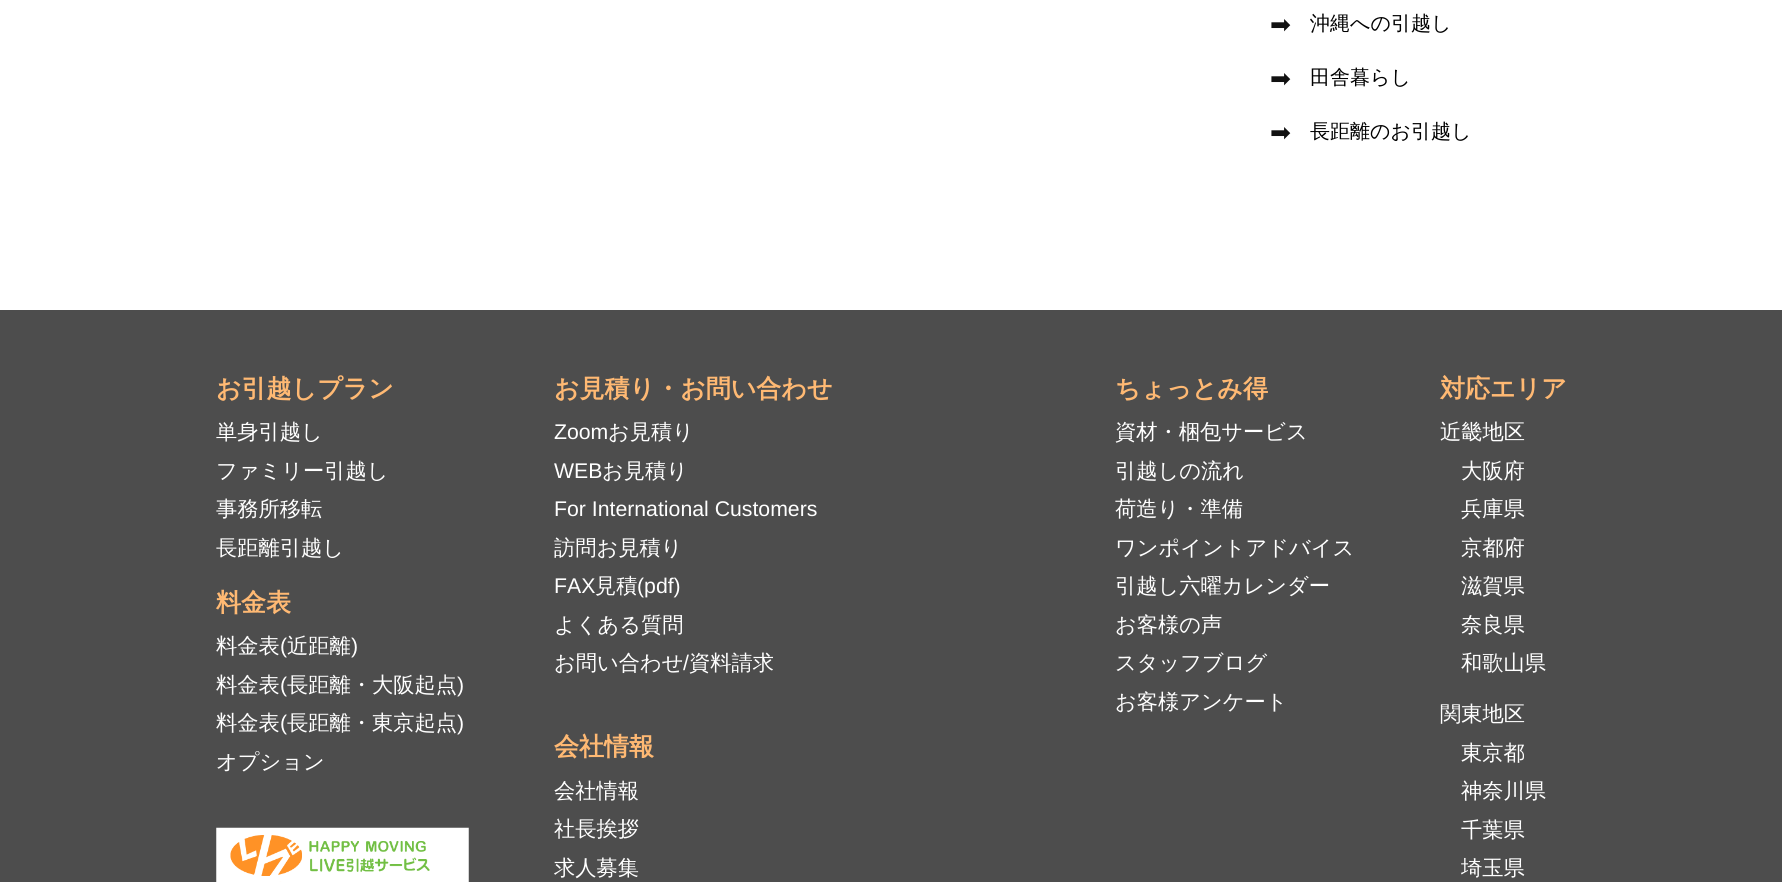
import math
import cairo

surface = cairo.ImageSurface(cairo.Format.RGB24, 1782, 882)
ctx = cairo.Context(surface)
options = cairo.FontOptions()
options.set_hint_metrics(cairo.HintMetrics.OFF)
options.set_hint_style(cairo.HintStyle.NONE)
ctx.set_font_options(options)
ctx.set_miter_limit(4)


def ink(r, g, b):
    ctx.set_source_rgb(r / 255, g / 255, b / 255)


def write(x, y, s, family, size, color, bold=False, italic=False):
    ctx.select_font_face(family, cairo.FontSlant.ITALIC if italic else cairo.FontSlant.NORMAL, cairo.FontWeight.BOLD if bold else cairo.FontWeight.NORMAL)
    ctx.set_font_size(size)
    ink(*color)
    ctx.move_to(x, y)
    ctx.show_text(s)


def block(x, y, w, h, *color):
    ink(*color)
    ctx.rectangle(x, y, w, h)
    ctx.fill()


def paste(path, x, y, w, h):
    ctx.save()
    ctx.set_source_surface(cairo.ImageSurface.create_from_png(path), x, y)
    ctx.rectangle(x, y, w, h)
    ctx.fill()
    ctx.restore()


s1 = dict(family="DejaVu Sans", size=25, color=(17, 17, 17))
s2 = dict(family="WenQuanYi Zen Hei Medium", size=20, color=(0, 0, 0))
s3 = dict(family="WenQuanYi Zen Hei", size=25, color=(255, 185, 115), bold=True)
s4 = dict(family="WenQuanYi Zen Hei Medium", size=21.25, color=(255, 255, 255))
s5 = dict(family="Liberation Sans", size=21.25, color=(255, 255, 255))

ink(255, 255, 255)
ctx.paint()
write(1270, 33, "➡", **s1)
write(1310, 30, "沖縄への引越し", **s2)
write(1270, 87, "➡", **s1)
write(1310, 84, "田舎暮らし", **s2)
write(1270, 141, "➡", **s1)
write(1310, 138, "長距離のお引越し", **s2)
block(0, 310, 1782, 572, 77, 77, 77)
write(216, 397, "お引越しプラン", **s3)
write(216, 439, "単身引越し", **s4)
write(216, 478, "ファミリー引越し", **s4)
write(216, 516, "事務所移転", **s4)
write(216, 555, "長距離引越し", **s4)
write(216, 611, "料金表", **s3)
write(216, 653, "料金表", **s4)
write(280, 653, "(", **s5)
write(287, 653, "近距離", **s4)
write(351, 653, ")", **s5)
write(216, 692, "料金表", **s4)
write(280, 692, "(", **s5)
write(287, 692, "長距離・大阪起点", **s4)
write(457, 692, ")", **s5)
write(216, 730, "料金表", **s4)
write(280, 730, "(", **s5)
write(287, 730, "長距離・東京起点", **s4)
write(457, 730, ")", **s5)
write(216, 769, "オプション", **s4)
paste("pic1.png", 216, 827, 253, 55)
write(554, 397, "お見積り・お問い合わせ", **s3)
write(554, 439, "Zoom", **s5)
write(608, 439, "お見積り", **s4)
write(554, 478, "WEB", **s5)
write(602, 478, "お見積り", **s4)
write(554, 516, "For International Customers", **s5)
write(554, 555, "訪問お見積り", **s4)
write(554, 593, "FAX", **s5)
write(595, 593, "見積", **s4)
write(637, 593, "(pdf)", **s5)
write(554, 632, "よくある質問", **s4)
write(554, 670, "お問い合わせ", **s4)
write(683, 670, "/", **s5)
write(689, 670, "資料請求", **s4)
write(554, 755, "会社情報", **s3)
write(554, 798, "会社情報", **s4)
write(554, 836, "社長挨拶", **s4)
write(554, 875, "求人募集", **s4)
write(1115, 397, "ちょっとみ得", **s3)
write(1115, 439, "資材・梱包サービス", **s4)
write(1115, 478, "引越しの流れ", **s4)
write(1115, 516, "荷造り・準備", **s4)
write(1115, 555, "ワンポイントアドバイス", **s4)
write(1115, 593, "引越し六曜カレンダー", **s4)
write(1115, 632, "お客様の声", **s4)
write(1115, 670, "スタッフブログ", **s4)
write(1115, 709, "お客様アンケート", **s4)
write(1440, 397, "対応エリア", **s3)
write(1440, 439, "近畿地区", **s4)
write(1461, 478, "大阪府", **s4)
write(1461, 516, "兵庫県", **s4)
write(1461, 555, "京都府", **s4)
write(1461, 593, "滋賀県", **s4)
write(1461, 632, "奈良県", **s4)
write(1461, 670, "和歌山県", **s4)
write(1440, 721, "関東地区", **s4)
write(1461, 760, "東京都", **s4)
write(1461, 798, "神奈川県", **s4)
write(1461, 837, "千葉県", **s4)
write(1461, 875, "埼玉県", **s4)
surface.write_to_png("screenshot.png")
